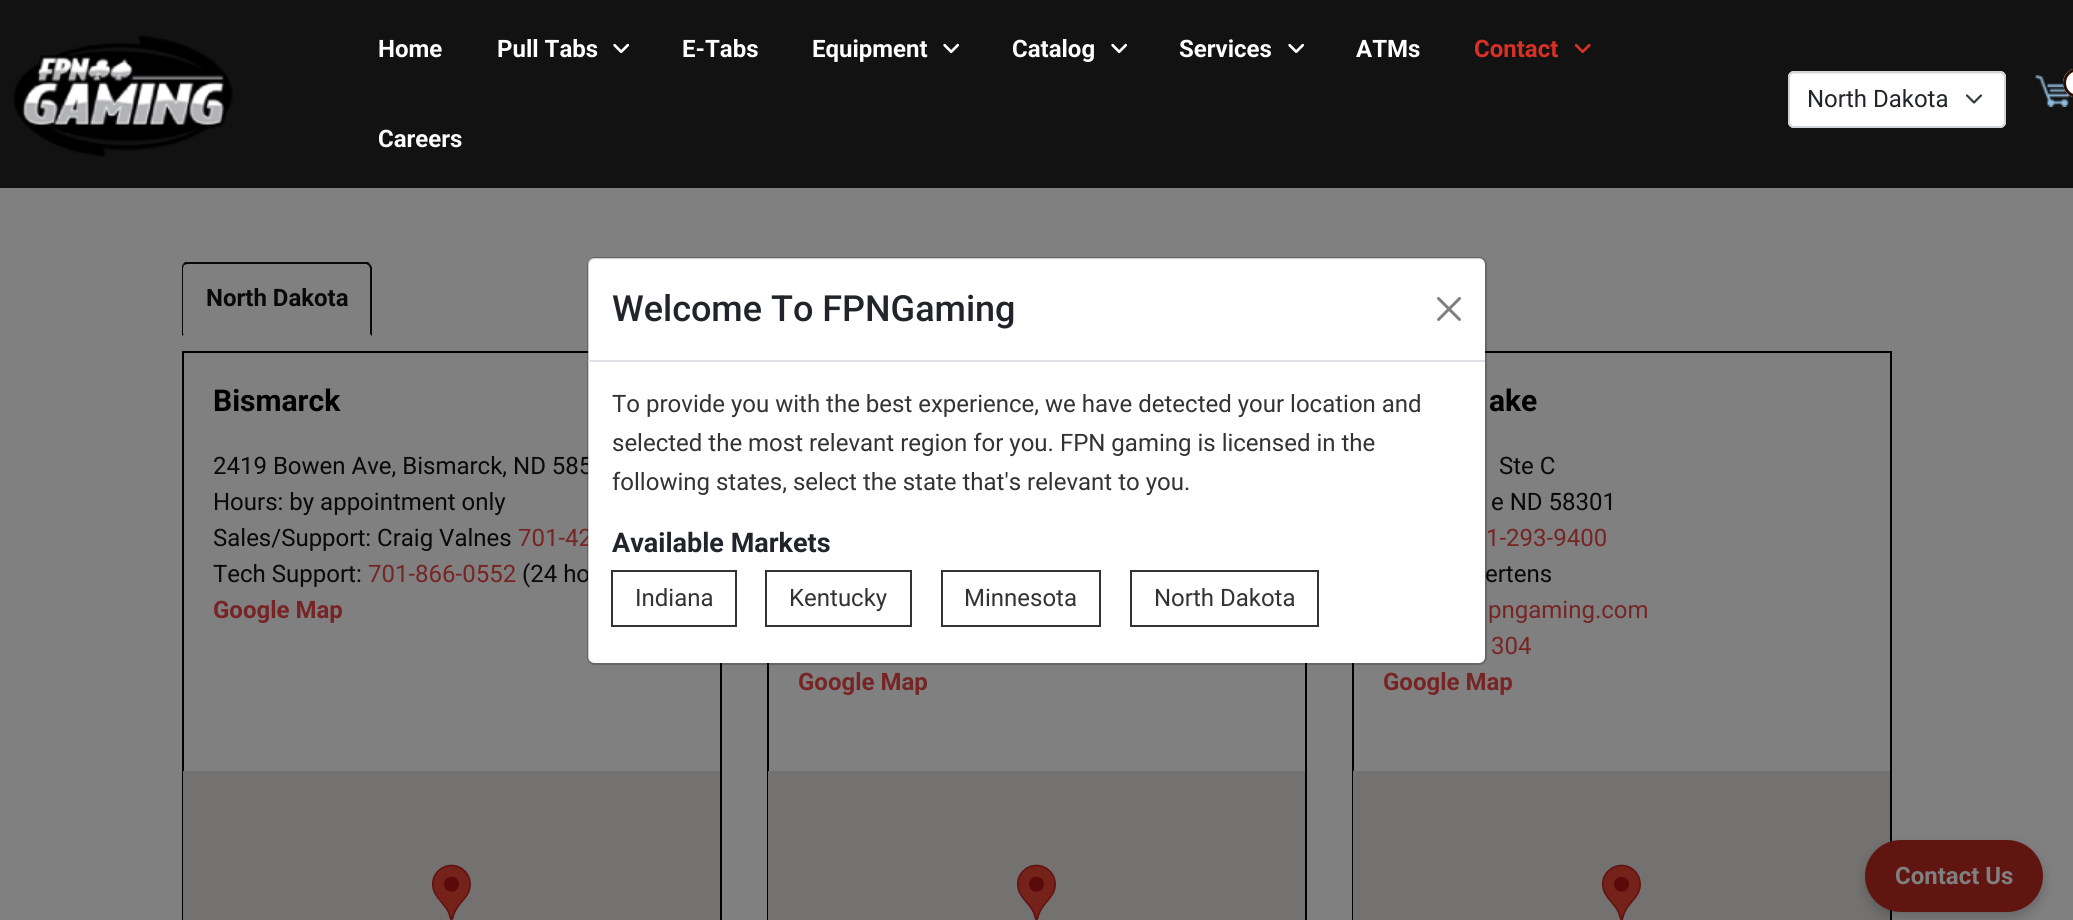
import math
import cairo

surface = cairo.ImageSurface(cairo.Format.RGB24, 2073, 920)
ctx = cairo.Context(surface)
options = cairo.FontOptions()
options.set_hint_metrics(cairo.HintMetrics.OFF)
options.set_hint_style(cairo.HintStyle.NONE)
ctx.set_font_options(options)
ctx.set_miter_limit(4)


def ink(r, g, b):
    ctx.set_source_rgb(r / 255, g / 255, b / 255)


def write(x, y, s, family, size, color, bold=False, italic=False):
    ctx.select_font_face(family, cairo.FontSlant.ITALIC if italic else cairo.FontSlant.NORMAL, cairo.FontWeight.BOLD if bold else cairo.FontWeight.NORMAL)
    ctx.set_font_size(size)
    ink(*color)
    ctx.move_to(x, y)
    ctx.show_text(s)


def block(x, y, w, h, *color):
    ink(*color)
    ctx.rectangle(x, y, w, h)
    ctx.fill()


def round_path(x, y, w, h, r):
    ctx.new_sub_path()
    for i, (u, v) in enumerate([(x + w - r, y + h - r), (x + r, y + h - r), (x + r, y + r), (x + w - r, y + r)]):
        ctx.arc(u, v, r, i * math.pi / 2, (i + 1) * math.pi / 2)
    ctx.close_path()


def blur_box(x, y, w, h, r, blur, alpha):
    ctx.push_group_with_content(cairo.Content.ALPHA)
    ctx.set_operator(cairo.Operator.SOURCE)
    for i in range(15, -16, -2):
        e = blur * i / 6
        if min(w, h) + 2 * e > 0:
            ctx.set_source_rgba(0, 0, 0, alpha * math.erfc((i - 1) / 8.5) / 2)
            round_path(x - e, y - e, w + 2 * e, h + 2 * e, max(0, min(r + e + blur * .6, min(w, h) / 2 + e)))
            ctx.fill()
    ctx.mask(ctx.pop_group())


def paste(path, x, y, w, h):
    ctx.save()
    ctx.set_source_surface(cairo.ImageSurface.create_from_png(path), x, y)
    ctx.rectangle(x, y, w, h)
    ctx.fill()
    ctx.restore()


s1 = dict(family="Roboto", size=24, color=(255, 255, 255), bold=True)
s2 = dict(family="Roboto", size=24, color=(217, 48, 37), bold=True)
s3 = dict(family="Roboto", size=24, color=(33, 37, 41))
s4 = dict(family="Roboto", size=24, color=(9, 9, 9), bold=True)
s5 = dict(family="Roboto", size=30, color=(0, 0, 0), bold=True)
s6 = dict(family="Roboto", size=24, color=(9, 9, 9))
s7 = dict(family="Roboto", size=24, color=(118, 37, 36))
s8 = dict(family="Roboto", size=24, color=(118, 37, 36), bold=True)
s9 = dict(family="Roboto Medium", size=36, color=(33, 37, 41))
s10 = dict(family="Roboto", size=24, color=(51, 51, 51))
s11 = dict(family="Roboto", size=27, color=(33, 37, 41), bold=True)
s12 = dict(family="Roboto", size=24, color=(128, 128, 128), bold=True)

ink(128, 128, 128)
ctx.paint()
block(0, 0, 2073, 188, 18, 18, 18)
paste("pic1.png", 13, 35, 220, 122)
write(378, 57, "Home", **s1)
write(497, 57, "Pull Tabs", **s1)
paste("pic2.png", 613, 43, 16, 10)
write(682, 57, "E-Tabs", **s1)
write(812, 57, "Equipment", **s1)
paste("pic2.png", 943, 43, 16, 10)
write(1012, 57, "Catalog", **s1)
paste("pic2.png", 1111, 43, 16, 10)
write(1179, 57, "Services", **s1)
paste("pic2.png", 1288, 43, 16, 10)
write(1356, 57, "ATMs", **s1)
write(1474, 57, "Contact", **s2)
paste("pic3.png", 1574, 43, 17, 10)
write(378, 147, "Careers", **s1)
round_path(1788, 71, 218, 57, 6)
ctx.fill()
ctx.new_path()
ctx.move_to(1967, 95.5)
ctx.line_to(1974, 102.5)
ctx.line_to(1981, 95.5)
ink(52, 58, 64)
ctx.set_line_width(2.2)
ctx.set_line_cap(cairo.LineCap.ROUND)
ctx.set_line_join(cairo.LineJoin.ROUND)
ctx.stroke()
ink(236, 236, 236)
ctx.new_path()
ctx.move_to(1794, 74)
ctx.line_to(2000, 74)
ctx.curve_to(2002, 74, 2004, 76, 2004, 78)
ctx.curve_to(2004, 75, 2002, 72, 1999, 72)
ctx.line_to(1794, 72)
ctx.curve_to(1791, 73, 1790, 75, 1790, 78)
ctx.curve_to(1790, 76, 1792, 74, 1794, 74)
ctx.close_path()
ctx.fill()
round_path(1789, 72, 216, 55, 5)
ink(206, 212, 218)
ctx.set_line_width(2)
ctx.set_line_cap(cairo.LineCap.BUTT)
ctx.set_line_join(cairo.LineJoin.MITER)
ctx.stroke()
write(1807, 107, "North Dakota", **s3)
paste("pic4.png", 2035, 75, 36, 32)
ink(255, 255, 255)
ctx.new_path()
ctx.move_to(2078, 68)
ctx.line_to(2073, 68)
ctx.line_to(2073, 98)
ctx.line_to(2078, 98)
ctx.curve_to(2069.5, 98, 2063, 91.5, 2063, 83)
ctx.curve_to(2063, 74.5, 2069.5, 68, 2078, 68)
ctx.close_path()
ctx.fill()
round_path(2064.5, 69.5, 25, 27, 13.5)
ink(46, 14, 1)
ctx.set_line_width(3)
ctx.stroke()
ink(9, 9, 9)
ctx.new_path()
ctx.move_to(188, 264)
ctx.curve_to(186, 264, 185, 265, 184, 265)
ctx.line_to(183, 264)
ctx.line_to(185, 262)
ctx.line_to(368, 262)
ctx.line_to(370, 264)
ctx.line_to(369, 266)
ctx.curve_to(368, 265, 367, 264, 366, 264)
ctx.close_path()
ctx.fill()
ctx.new_path()
ctx.move_to(372, 336)
ctx.line_to(372, 268)
ctx.curve_to(372, 267, 371, 265, 370, 264)
ctx.line_to(369, 266)
ctx.line_to(370, 268)
ctx.line_to(370, 334)
ctx.close_path()
ctx.fill()
ctx.new_path()
ctx.move_to(182, 336)
ctx.line_to(182, 268)
ctx.curve_to(182, 267, 182, 265, 183, 264)
ctx.line_to(184, 265)
ctx.line_to(183, 268)
ctx.line_to(183, 334)
ctx.line_to(184, 334)
ctx.close_path()
ctx.fill()
write(206, 306, "North Dakota", **s4)
ctx.rectangle(183, 352, 538, 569)
ink(0, 0, 0)
ctx.set_line_width(2)
ctx.stroke()
write(213, 411, "Bismarck", **s5)
write(213, 474, "2419 Bowen Ave, Bismarck, ND 585", **s6)
write(213, 510, "Hours: by appointment only", **s6)
write(213, 546, "Sales/Support: Craig Valnes", **s6)
write(518, 546, "701-42", **s7)
write(213, 582, "Tech Support:", **s6)
write(368, 582, "701-866-0552", **s7)
write(522, 582, "(24 ho", **s6)
write(213, 618, "Google Map", **s8)
block(183, 771, 537, 149, 115, 114, 112)
paste("pic5.png", 432, 864, 39, 56)
ctx.rectangle(768, 352, 538, 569)
ink(0, 0, 0)
ctx.stroke()
write(798, 690, "Google Map", **s8)
block(768, 771, 537, 149, 115, 114, 112)
paste("pic5.png", 1017, 864, 39, 56)
ctx.rectangle(1353, 352, 538, 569)
ink(0, 0, 0)
ctx.stroke()
write(1489, 411, "ake", **s5)
write(1499, 474, "Ste C", **s6)
write(1491, 510, "e ND 58301", **s6)
write(1486, 546, "1-293-9400", **s7)
write(1485, 582, "ertens", **s6)
write(1488, 618, "pngaming.com", **s7)
write(1491, 654, "304", **s7)
write(1383, 690, "Google Map", **s8)
block(1353, 771, 537, 149, 115, 114, 112)
paste("pic5.png", 1602, 864, 39, 56)
ink(255, 255, 255)
round_path(588, 258, 897, 405, 6)
ctx.fill()
round_path(588, 258, 898, 406, 7)
ctx.set_source_rgba(0, 0, 0, 0.2)
ctx.stroke()
block(588, 360, 897, 2, 222, 226, 230)
write(612, 321, "Welcome To FPNGaming", **s9)
paste("pic6.png", 1437, 297, 24, 24)
write(612, 412, "To provide you with the best experience, we have detected your location and", **s10)
write(612, 451, "selected the most relevant region for you. FPN gaming is licensed in the", **s10)
write(612, 490, "following states, select the state that's relevant to you.", **s10)
write(612, 552, "Available Markets", **s11)
ctx.rectangle(612, 571, 124, 55)
ink(51, 51, 51)
ctx.stroke()
write(635, 606, "Indiana", **s10)
ctx.rectangle(766, 571, 145, 55)
ctx.stroke()
write(789, 606, "Kentucky", **s10)
ctx.rectangle(942, 571, 158, 55)
ctx.stroke()
write(964, 606, "Minnesota", **s10)
ctx.rectangle(1131, 571, 187, 55)
ctx.stroke()
write(1154, 606, "North Dakota", **s10)
ink(0, 0, 0)
blur_box(1865, 846, 178, 72, 36, 6, 0.2)
ink(96, 21, 17)
round_path(1865, 840, 178, 72, 36)
ctx.fill()
write(1895, 884, "Contact Us", **s12)
surface.write_to_png("screenshot.png")
